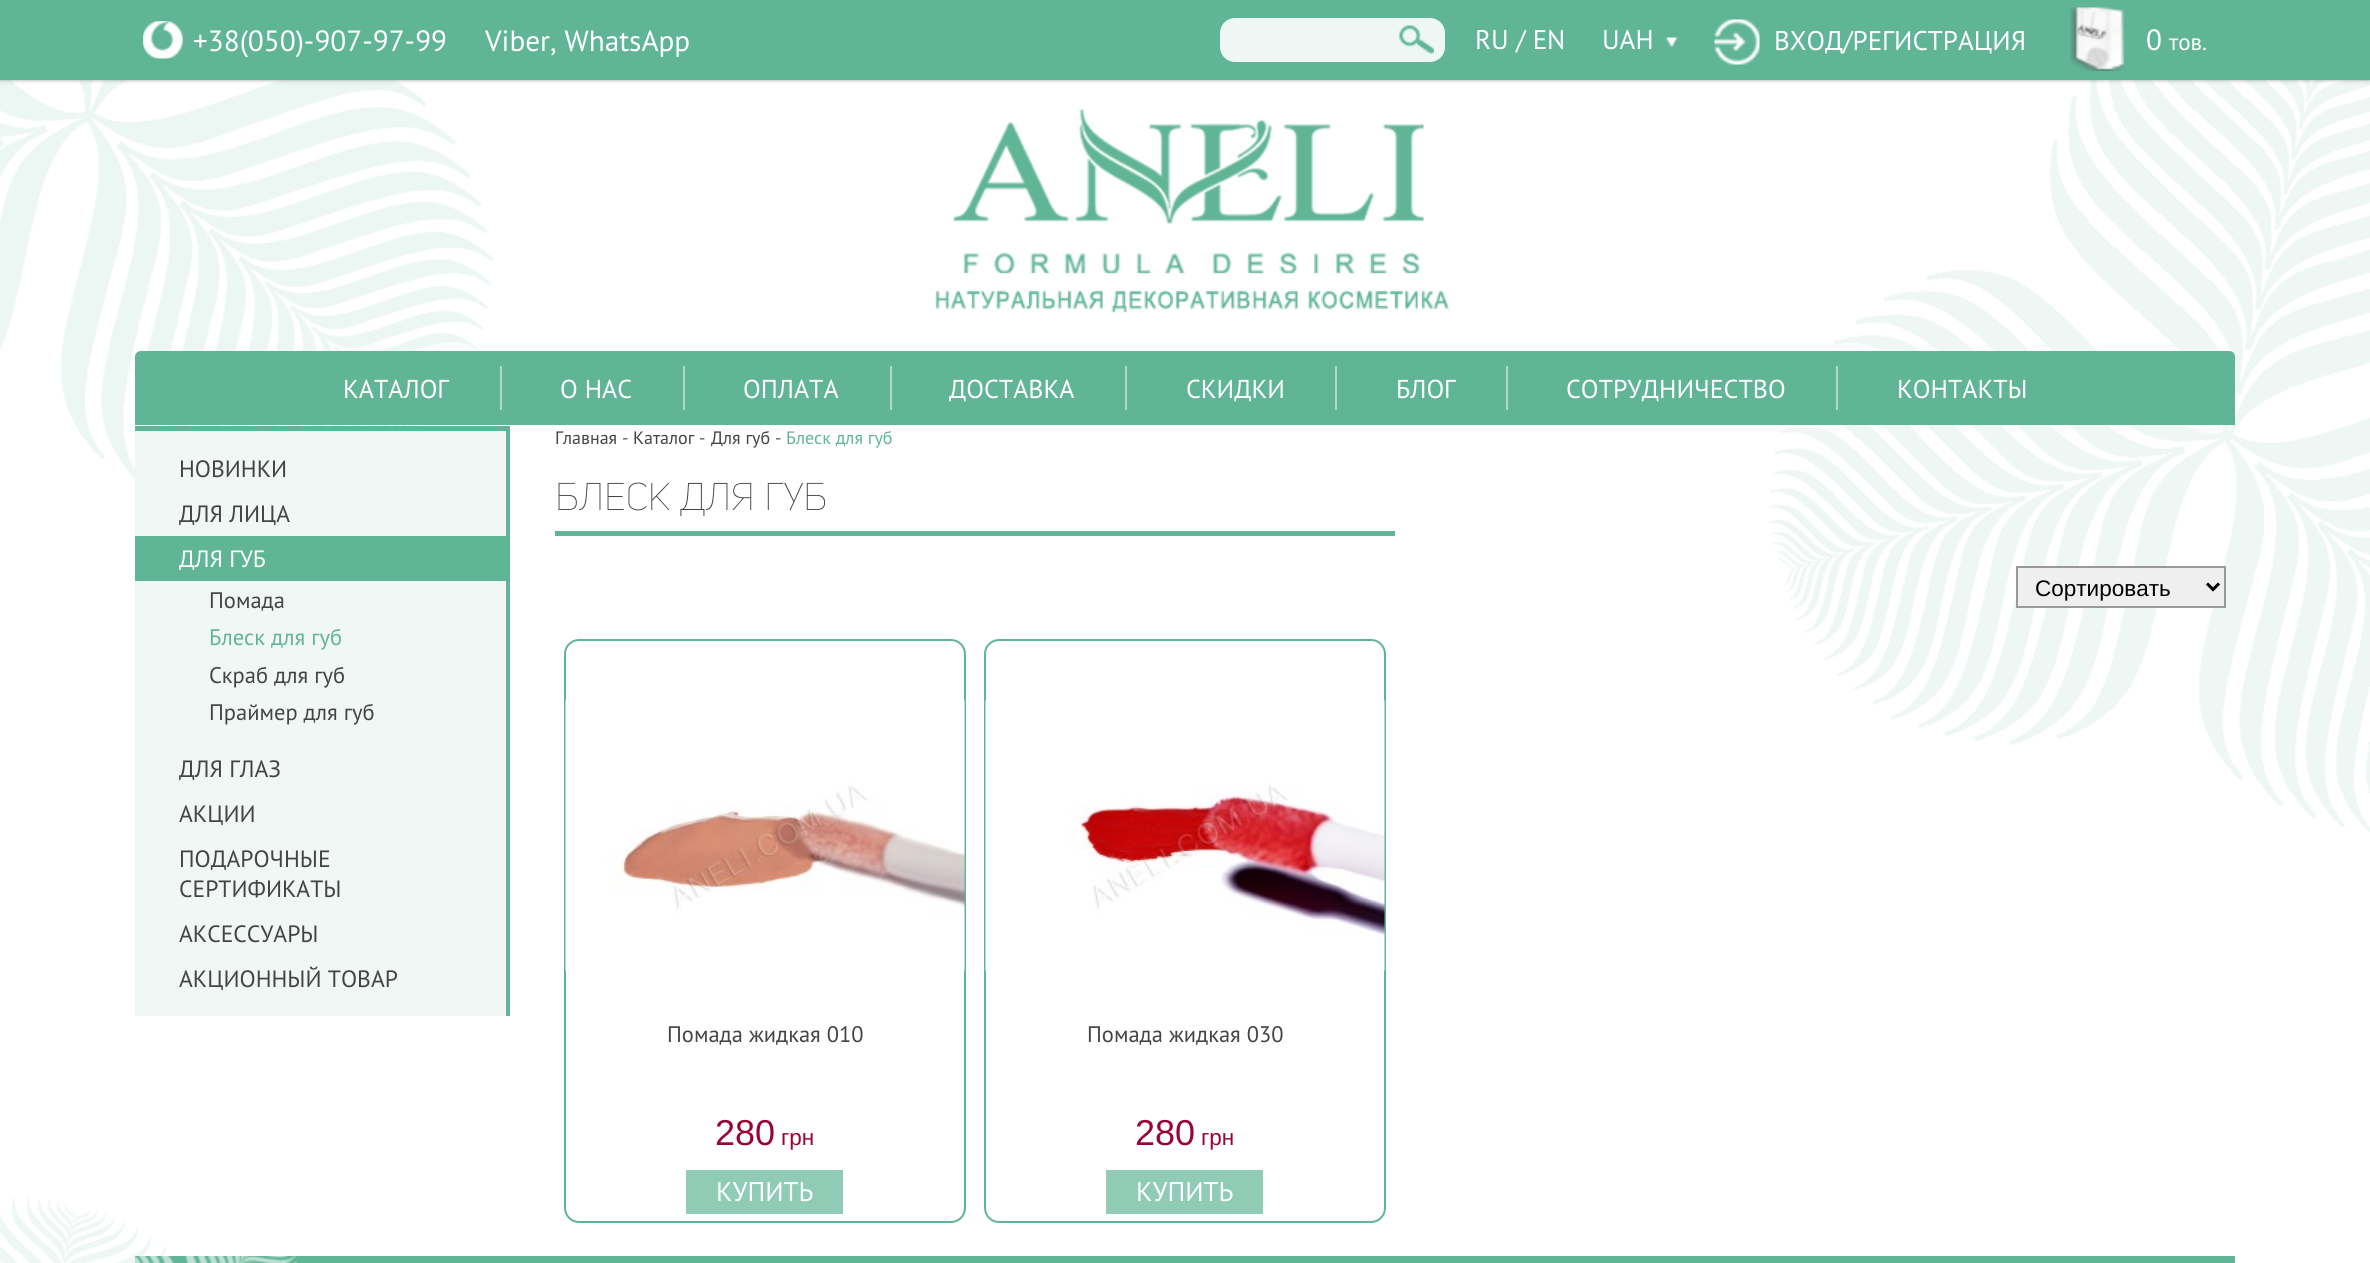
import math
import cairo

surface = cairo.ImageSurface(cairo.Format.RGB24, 2370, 1263)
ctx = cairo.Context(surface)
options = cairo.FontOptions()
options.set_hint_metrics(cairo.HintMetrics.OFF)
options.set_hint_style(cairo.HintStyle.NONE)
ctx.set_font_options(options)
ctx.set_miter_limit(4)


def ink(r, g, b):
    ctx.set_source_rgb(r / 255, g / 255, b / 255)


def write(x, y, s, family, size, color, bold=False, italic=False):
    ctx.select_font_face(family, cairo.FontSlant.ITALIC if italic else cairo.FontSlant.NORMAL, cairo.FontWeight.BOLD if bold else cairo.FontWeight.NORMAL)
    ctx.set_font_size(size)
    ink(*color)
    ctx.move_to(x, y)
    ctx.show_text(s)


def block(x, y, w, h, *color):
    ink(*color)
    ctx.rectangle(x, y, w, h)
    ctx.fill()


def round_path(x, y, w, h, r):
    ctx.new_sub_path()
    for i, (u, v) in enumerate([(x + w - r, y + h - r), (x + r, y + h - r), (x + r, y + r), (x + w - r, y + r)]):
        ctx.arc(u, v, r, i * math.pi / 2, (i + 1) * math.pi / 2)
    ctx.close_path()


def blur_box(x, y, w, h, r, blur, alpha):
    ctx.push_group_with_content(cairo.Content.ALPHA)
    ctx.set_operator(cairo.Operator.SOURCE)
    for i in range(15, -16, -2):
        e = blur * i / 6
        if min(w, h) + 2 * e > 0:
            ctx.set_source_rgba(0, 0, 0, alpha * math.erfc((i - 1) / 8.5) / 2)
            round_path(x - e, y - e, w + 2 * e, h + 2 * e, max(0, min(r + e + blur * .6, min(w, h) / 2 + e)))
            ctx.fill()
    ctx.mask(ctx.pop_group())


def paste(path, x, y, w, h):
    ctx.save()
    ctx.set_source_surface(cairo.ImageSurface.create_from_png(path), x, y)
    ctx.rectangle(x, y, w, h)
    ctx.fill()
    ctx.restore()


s1 = dict(family="PT Sans", size=29.25, color=(255, 255, 255))
s2 = dict(family="PT Sans", size=27, color=(255, 255, 255))
s3 = dict(family="PT Sans", size=23, color=(255, 255, 255))
s4 = dict(family="PT Sans", size=25.9, color=(255, 255, 255))
s5 = dict(family="PT Sans", size=23.6, color=(69, 68, 68))
s6 = dict(family="PT Sans", size=23.6, color=(255, 255, 255))
s7 = dict(family="PT Sans", size=22.5, color=(69, 68, 68))
s8 = dict(family="PT Sans", size=22.5, color=(96, 181, 150))
s9 = dict(family="PT Sans", size=18, color=(69, 68, 68))
s10 = dict(family="PT Sans", size=18, color=(91, 91, 91))
s11 = dict(family="PT Sans", size=18, color=(96, 181, 150))
s12 = dict(family="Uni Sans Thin", size=38.25, color=(69, 68, 68))
s13 = dict(family="Liberation Sans", size=22.5, color=(0, 0, 0))
s14 = dict(family="Liberation Sans", size=36, color=(152, 3, 56))
s15 = dict(family="Liberation Sans", size=22.5, color=(152, 3, 56))

ink(255, 255, 255)
ctx.paint()
paste("pic1.png", 0, 80, 2370, 1183)
ink(55, 55, 55)
blur_box(0, 0, 2370, 80, 0, 2, 0.5)
block(0, 0, 2370, 80, 96, 181, 150)
paste("pic2.png", 143, 21, 40, 38)
write(193, 51, "+38(050)-907-97-99", **s1)
write(485, 51, "Viber, WhatsApp", **s1)
ink(238, 247, 244)
round_path(1220, 18, 225, 44, 15)
ctx.fill()
paste("pic3.png", 1399, 25, 35, 29)
write(1475, 49, "RU / EN", **s2)
write(1602, 49, "UAH", **s2)
paste("pic4.png", 1666, 37, 11, 10)
paste("pic5.png", 1714, 19, 46, 46)
write(1774, 50, "ВХОД/РЕГИСТРАЦИЯ", **s2)
paste("pic6.png", 2070, 7, 55, 64)
write(2146, 50, "0", **s1)
write(2169, 50, "тов.", **s3)
paste("pic7.png", 935, 109, 515, 204)
ink(96, 181, 150)
ctx.new_path()
ctx.move_to(141, 351)
ctx.line_to(2229, 351)
ctx.curve_to(2232.5, 351, 2235, 353.5, 2235, 357)
ctx.line_to(2235, 425)
ctx.line_to(135, 425)
ctx.line_to(135, 357)
ctx.curve_to(135, 353.5, 137.5, 351, 141, 351)
ctx.close_path()
ctx.fill()
write(343, 398, "КАТАЛОГ", **s4)
block(500, 366, 2, 44, 175, 217, 201)
write(560, 398, "O НАС", **s4)
block(683, 366, 2, 44, 175, 217, 201)
write(743, 398, "ОПЛАТА", **s4)
block(890, 366, 2, 44, 175, 217, 201)
write(949, 398, "ДОСТАВКА", **s4)
block(1125, 366, 2, 44, 175, 217, 201)
write(1186, 398, "СКИДКИ", **s4)
block(1335, 366, 2, 44, 175, 217, 201)
write(1396, 398, "БЛОГ", **s4)
block(1506, 366, 2, 44, 175, 217, 201)
write(1566, 398, "СОТРУДНИЧЕСТВО", **s4)
block(1836, 366, 2, 44, 175, 217, 201)
write(1897, 398, "КОНТАКТЫ", **s4)
block(135, 431, 371, 585, 241, 247, 245)
block(135, 426, 375, 5, 96, 181, 150)
block(506, 426, 4, 590, 96, 181, 150)
write(179, 477, "НОВИНКИ", **s5)
write(179, 522, "ДЛЯ ЛИЦА", **s5)
block(135, 536, 371, 45, 96, 181, 150)
write(179, 567, "ДЛЯ ГУБ", **s6)
write(209, 608, "Помада", **s7)
write(209, 645, "Блеск для губ", **s8)
write(209, 683, "Скраб для губ", **s7)
write(209, 720, "Праймер для губ", **s7)
write(179, 777, "ДЛЯ ГЛАЗ", **s5)
write(179, 822, "АКЦИИ", **s5)
write(179, 867, "ПОДАРОЧНЫЕ", **s5)
write(179, 897, "СЕРТИФИКАТЫ", **s5)
write(179, 942, "АКСЕССУАРЫ", **s5)
write(179, 987, "АКЦИОННЫЙ ТОВАР", **s5)
write(555, 444, "Главная", **s9)
write(622, 444, "-", **s10)
write(633, 444, "Каталог", **s9)
write(699, 444, "-", **s10)
write(711, 444, "Для губ", **s9)
write(775, 444, "-", **s10)
write(786, 444, "Блеск для губ", **s11)
write(555, 510, "БЛЕСК ДЛЯ ГУБ", **s12)
block(555, 531, 840, 5, 96, 181, 150)
ink(239, 239, 239)
ctx.rectangle(2017, 567, 208, 40)
ctx.fill_preserve()
ink(153, 153, 153)
ctx.stroke()
ctx.new_path()
ctx.move_to(2207, 583.5)
ctx.line_to(2213, 589.5)
ctx.line_to(2219, 583.5)
ink(0, 0, 0)
ctx.set_line_width(3)
ctx.stroke()
write(2035, 596, "Сортировать", **s13)
round_path(565, 640, 400, 582, 14)
ink(96, 181, 150)
ctx.set_line_width(2)
ctx.stroke()
paste("pic8.png", 565, 700, 400, 271)
write(667, 1042, "Помада жидкая 010", **s7)
write(715, 1145, "280", **s14)
write(781, 1145, "грн", **s15)
block(686, 1170, 157, 44, 143, 203, 181)
write(716, 1201, "КУПИТЬ", **s2)
round_path(985, 640, 400, 582, 14)
ink(96, 181, 150)
ctx.stroke()
paste("pic9.png", 985, 700, 400, 271)
write(1087, 1042, "Помада жидкая 030", **s7)
write(1135, 1145, "280", **s14)
write(1201, 1145, "грн", **s15)
block(1106, 1170, 157, 44, 143, 203, 181)
write(1136, 1201, "КУПИТЬ", **s2)
block(135, 1256, 2100, 7, 96, 181, 150)
paste("pic10.png", 135, 1255, 162, 8)
surface.write_to_png("screenshot.png")
